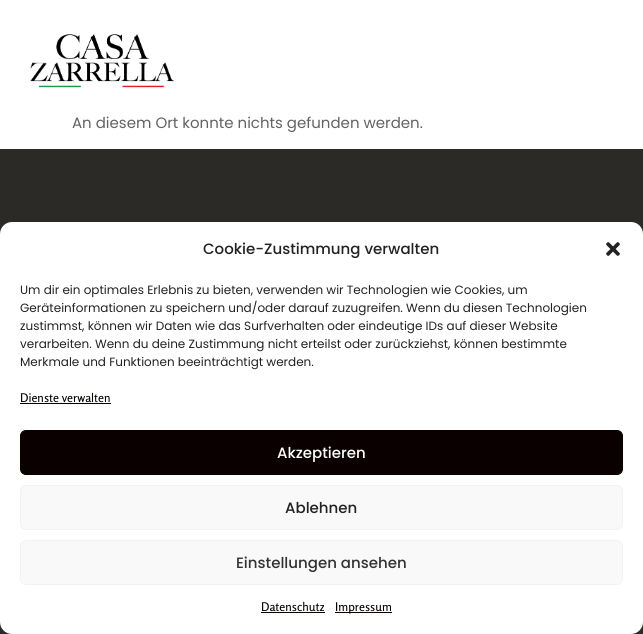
import math
import cairo

surface = cairo.ImageSurface(cairo.Format.RGB24, 643, 634)
ctx = cairo.Context(surface)
options = cairo.FontOptions()
options.set_hint_metrics(cairo.HintMetrics.OFF)
options.set_hint_style(cairo.HintStyle.NONE)
ctx.set_font_options(options)
ctx.set_miter_limit(4)


def ink(r, g, b):
    ctx.set_source_rgb(r / 255, g / 255, b / 255)


def write(x, y, s, family, size, color, bold=False, italic=False):
    ctx.select_font_face(family, cairo.FontSlant.ITALIC if italic else cairo.FontSlant.NORMAL, cairo.FontWeight.BOLD if bold else cairo.FontWeight.NORMAL)
    ctx.set_font_size(size)
    ink(*color)
    ctx.move_to(x, y)
    ctx.show_text(s)


def block(x, y, w, h, *color):
    ink(*color)
    ctx.rectangle(x, y, w, h)
    ctx.fill()


def round_path(x, y, w, h, r):
    ctx.new_sub_path()
    for i, (u, v) in enumerate([(x + w - r, y + h - r), (x + r, y + h - r), (x + r, y + r), (x + w - r, y + r)]):
        ctx.arc(u, v, r, i * math.pi / 2, (i + 1) * math.pi / 2)
    ctx.close_path()


def paste(path, x, y, w, h):
    ctx.save()
    ctx.set_source_surface(cairo.ImageSurface.create_from_png(path), x, y)
    ctx.rectangle(x, y, w, h)
    ctx.fill()
    ctx.restore()


s1 = dict(family="Poppins", size=15, color=(98, 98, 98))
s2 = dict(family="Poppins Medium", size=15, color=(34, 34, 34))
s3 = dict(family="Poppins", size=12, color=(34, 34, 34))
s4 = dict(family="Rosario Medium", size=12, color=(10, 0, 0))
s5 = dict(family="Poppins Medium", size=15, color=(255, 255, 255))
s6 = dict(family="Poppins Medium", size=15, color=(51, 51, 51))

ink(255, 255, 255)
ctx.paint()
paste("pic1.png", 30, 34, 144, 54)
write(72, 128, "An diesem Ort konnte nichts gefunden werden.", **s1)
block(0, 149, 643, 485, 43, 42, 39)
ink(255, 255, 255)
round_path(0, 222, 643, 412, 12)
ctx.fill()
write(203, 254, "Cookie-Zustimmung verwalten", **s2)
paste("pic2.png", 606, 242, 14, 14)
write(20, 294, "Um dir ein optimales Erlebnis zu bieten, verwenden wir Technologien wie Cookies, um", **s3)
write(20, 312, "Geräteinformationen zu speichern und/oder darauf zuzugreifen. Wenn du diesen Technologien", **s3)
write(20, 330, "zustimmst, können wir Daten wie das Surfverhalten oder eindeutige IDs auf dieser Website", **s3)
write(20, 348, "verarbeiten. Wenn du deine Zustimmung nicht erteilst oder zurückziehst, können bestimmte", **s3)
write(20, 366, "Merkmale und Funktionen beeinträchtigt werden.", **s3)
write(20, 402, "Dienste verwalten", **s4)
block(20, 403, 91, 1, 10, 0, 0)
round_path(20.5, 430.5, 602, 44, 5.5)
ctx.fill_preserve()
ctx.set_line_width(1)
ctx.stroke()
write(277, 458, "Akzeptieren", **s5)
ink(249, 249, 249)
round_path(20.5, 485.5, 602, 44, 5.5)
ctx.fill_preserve()
ink(242, 242, 242)
ctx.stroke()
write(285, 513, "Ablehnen", **s2)
ink(249, 249, 249)
round_path(20.5, 540.5, 602, 44, 5.5)
ctx.fill_preserve()
ink(242, 242, 242)
ctx.stroke()
write(236, 568, "Einstellungen ansehen", **s6)
write(261, 611, "Datenschutz", **s4)
block(261, 612, 64, 1, 10, 0, 0)
block(335, 612, 57, 1, 10, 0, 0)
write(335, 611, "Impressum", **s4)
surface.write_to_png("screenshot.png")
